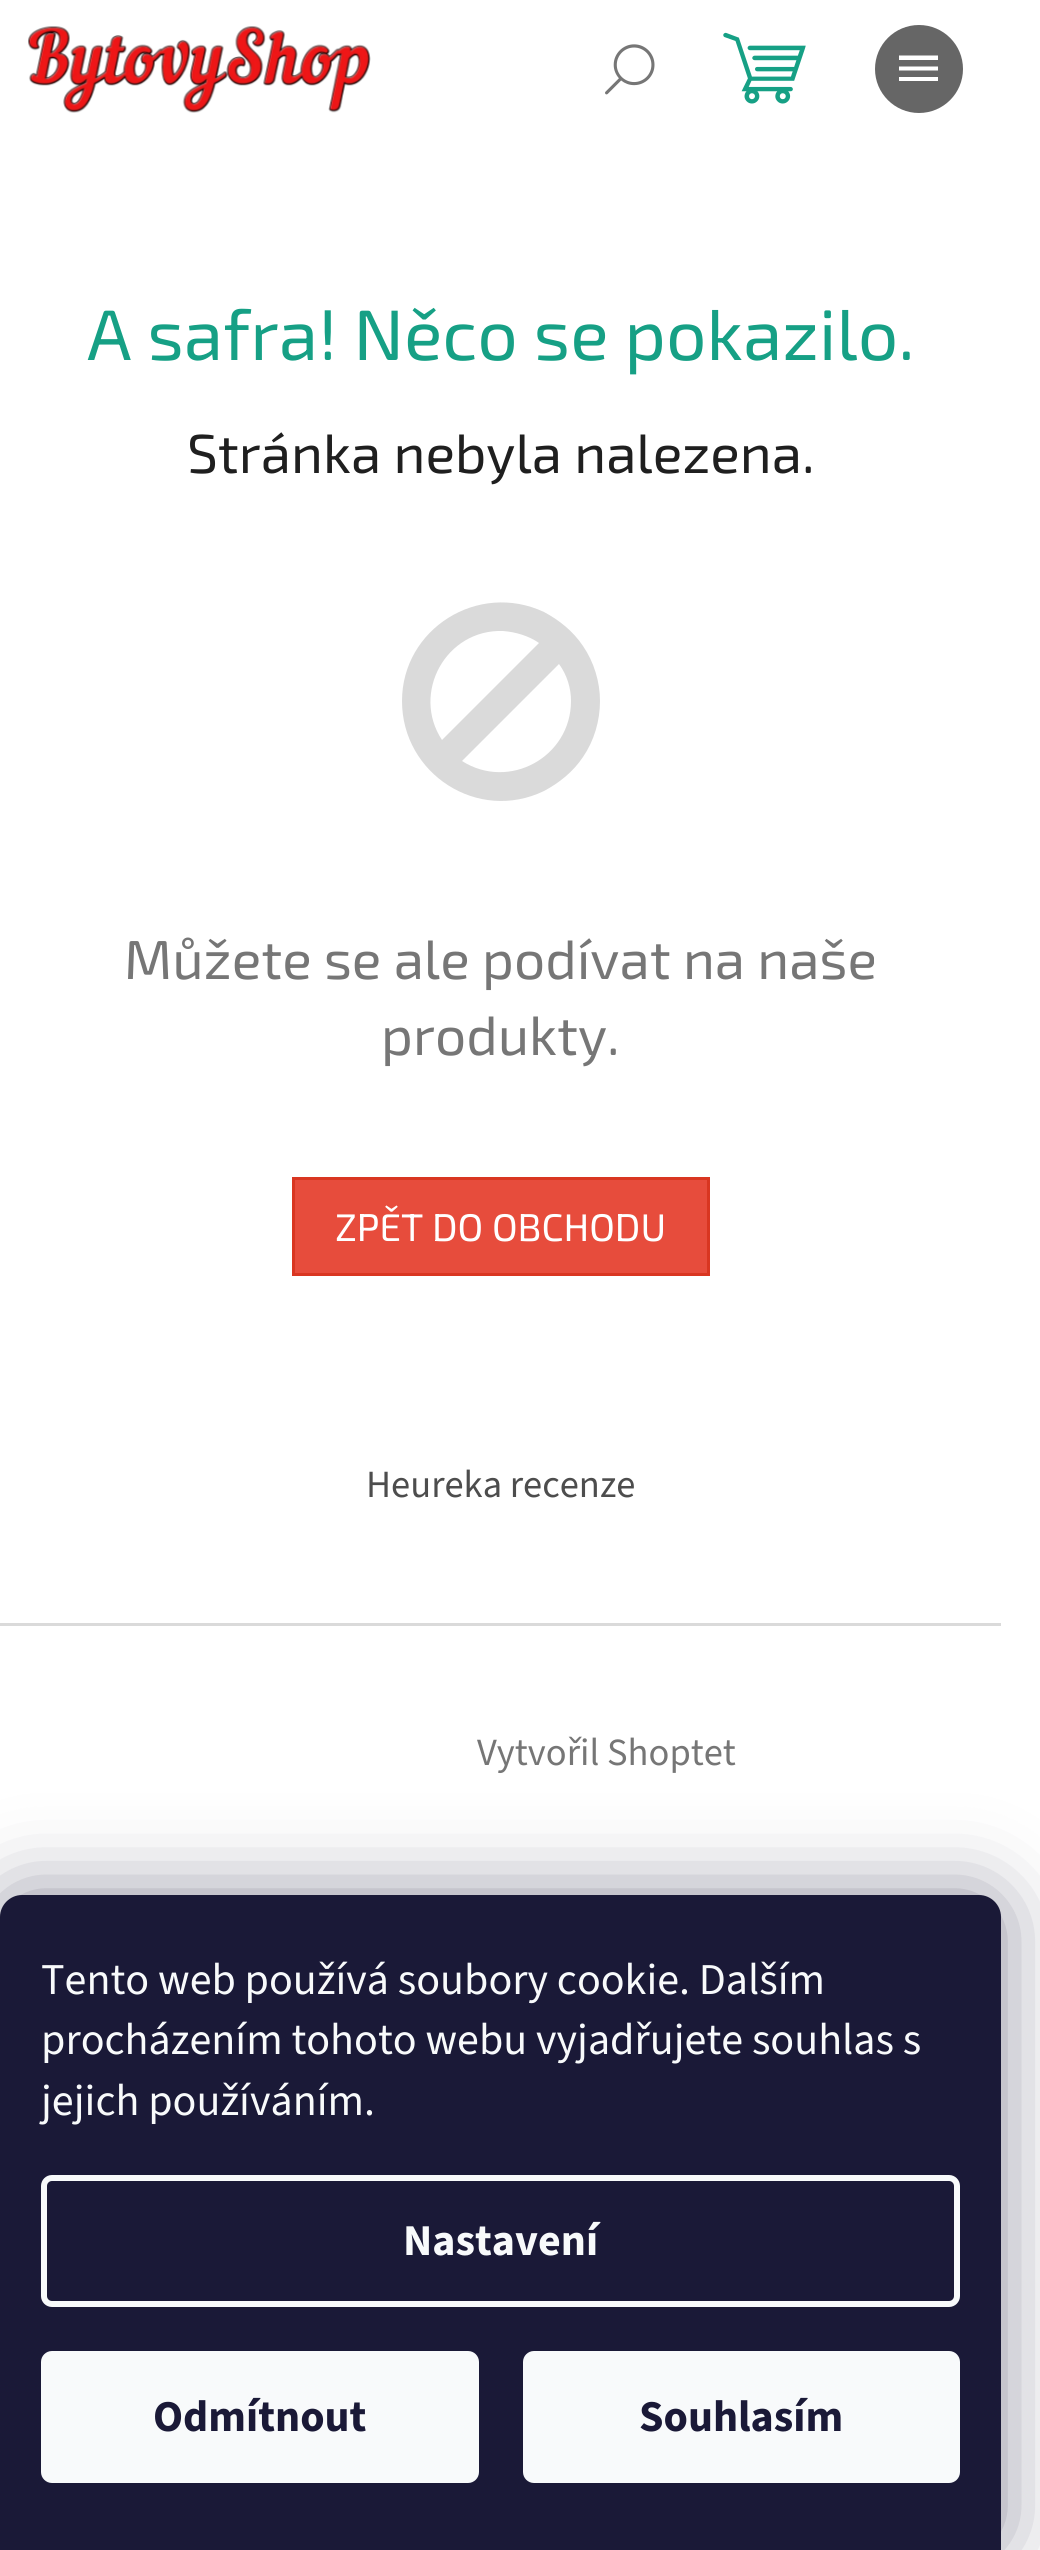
import math
import cairo

surface = cairo.ImageSurface(cairo.Format.RGB24, 1040, 2550)
ctx = cairo.Context(surface)
options = cairo.FontOptions()
options.set_hint_metrics(cairo.HintMetrics.OFF)
options.set_hint_style(cairo.HintStyle.NONE)
ctx.set_font_options(options)
ctx.set_miter_limit(4)


def ink(r, g, b):
    ctx.set_source_rgb(r / 255, g / 255, b / 255)


def write(x, y, s, family, size, color, bold=False, italic=False):
    ctx.select_font_face(family, cairo.FontSlant.ITALIC if italic else cairo.FontSlant.NORMAL, cairo.FontWeight.BOLD if bold else cairo.FontWeight.NORMAL)
    ctx.set_font_size(size)
    ink(*color)
    ctx.move_to(x, y)
    ctx.show_text(s)


def block(x, y, w, h, *color):
    ink(*color)
    ctx.rectangle(x, y, w, h)
    ctx.fill()


def round_path(x, y, w, h, r):
    ctx.new_sub_path()
    for i, (u, v) in enumerate([(x + w - r, y + h - r), (x + r, y + h - r), (x + r, y + r), (x + w - r, y + r)]):
        ctx.arc(u, v, r, i * math.pi / 2, (i + 1) * math.pi / 2)
    ctx.close_path()


def blur_box(x, y, w, h, r, blur, alpha):
    ctx.push_group_with_content(cairo.Content.ALPHA)
    ctx.set_operator(cairo.Operator.SOURCE)
    for i in range(15, -16, -2):
        e = blur * i / 6
        if min(w, h) + 2 * e > 0:
            ctx.set_source_rgba(0, 0, 0, alpha * math.erfc((i - 1) / 8.5) / 2)
            round_path(x - e, y - e, w + 2 * e, h + 2 * e, max(0, min(r + e + blur * .6, min(w, h) / 2 + e)))
            ctx.fill()
    ctx.mask(ctx.pop_group())


def paste(path, x, y, w, h):
    ctx.save()
    ctx.set_source_surface(cairo.ImageSurface.create_from_png(path), x, y)
    ctx.rectangle(x, y, w, h)
    ctx.fill()
    ctx.restore()


s1 = dict(family="Exo 2", size=71.5, color=(22, 160, 133))
s2 = dict(family="Exo 2", size=55, color=(31, 31, 31))
s3 = dict(family="Exo 2", size=55, color=(118, 118, 118))
s4 = dict(family="Exo 2", size=38.5, color=(255, 255, 255))
s5 = dict(family="Source Sans 3", size=38.5, color=(77, 77, 77))
s6 = dict(family="Source Sans 3", size=38.5, color=(118, 118, 118))
s7 = dict(family="Source Sans 3", size=44, color=(248, 250, 251))
s8 = dict(family="Source Sans 3", size=44, color=(248, 250, 251), bold=True)
s9 = dict(family="Source Sans 3", size=44, color=(26, 25, 55), bold=True)

ink(255, 255, 255)
ctx.paint()
paste("pic1.png", 605, 44, 50, 51)
ink(102, 102, 102)
ctx.arc(919, 69, 44, 0, 2 * math.pi)
ctx.fill()
ink(255, 255, 255)
ctx.new_path()
ctx.move_to(899, 81)
ctx.line_to(938, 81)
ctx.line_to(938, 77)
ctx.line_to(899, 77)
ctx.close_path()
ctx.move_to(899, 70.5)
ctx.line_to(938, 70.5)
ctx.line_to(938, 66.5)
ctx.line_to(899, 66.5)
ctx.close_path()
ctx.move_to(899, 55.5)
ctx.line_to(899, 60)
ctx.line_to(938, 60)
ctx.line_to(938, 55.5)
ctx.close_path()
ctx.fill()
paste("pic2.png", 28, 26, 343, 87)
paste("pic3.png", 723, 32, 83, 72)
write(87, 360, "A safra! Něco se pokazilo.", **s1)
write(187, 473, "Stránka nebyla nalezena.", **s2)
ink(218, 218, 218)
ctx.new_path()
ctx.move_to(571, 701)
ctx.curve_to(571, 688, 567, 675, 559, 664)
ctx.line_to(462, 761)
ctx.curve_to(509, 791, 571, 757, 571, 701)
ctx.close_path()
ctx.move_to(442, 740)
ctx.line_to(539, 643)
ctx.curve_to(529, 636, 516, 632, 503, 631)
ctx.curve_to(446, 629, 411, 693, 442, 740)
ctx.close_path()
ctx.move_to(600, 701)
ctx.curve_to(600, 721, 594, 741, 583, 757)
ctx.curve_to(573, 772, 559, 783, 544, 791)
ctx.curve_to(478, 823, 402, 774, 402, 701)
ctx.curve_to(402, 629, 478, 581, 544, 612)
ctx.curve_to(559, 620, 573, 631, 583, 646)
ctx.curve_to(594, 662, 600, 682, 600, 701)
ctx.close_path()
ctx.fill()
write(124, 979, "Můžete se ale podívat na naše", **s3)
write(381, 1055, "produkty.", **s3)
ink(231, 76, 60)
ctx.rectangle(293.5, 1178.5, 415, 96)
ctx.fill_preserve()
ink(217, 54, 33)
ctx.set_line_width(3)
ctx.stroke()
write(335, 1241, "ZPĚT DO OBCHODU", **s4)
write(366, 1497, "Heureka recenze", **s5)
block(0, 1623, 1001, 3, 218, 218, 218)
write(477, 1765, "Vytvořil Shoptet", **s6)
ink(27, 25, 57)
blur_box(0, 1895, 1001, 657, 22, 41, 0.5)
ink(26, 25, 55)
ctx.new_path()
ctx.move_to(22, 1895)
ctx.line_to(979, 1895)
ctx.curve_to(991, 1895, 1001, 1905, 1001, 1917)
ctx.line_to(1001, 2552)
ctx.line_to(0, 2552)
ctx.line_to(0, 1917)
ctx.curve_to(0, 1905, 10, 1895, 22, 1895)
ctx.close_path()
ctx.fill()
write(41, 1994, "Tento web používá soubory cookie. Dalším", **s7)
write(41, 2054, "procházením tohoto webu vyjadřujete souhlas s", **s7)
write(41, 2115, "jejich používáním.", **s7)
round_path(44, 2178, 913, 126, 8)
ctx.set_line_width(6)
ctx.stroke()
write(403, 2255, "Nastavení", **s8)
round_path(41, 2351, 438, 132, 11)
ctx.fill()
write(153, 2431, "Odmítnout", **s9)
ink(248, 250, 251)
round_path(523, 2351, 437, 132, 11)
ctx.fill()
write(639, 2431, "Souhlasím", **s9)
surface.write_to_png("screenshot.png")
